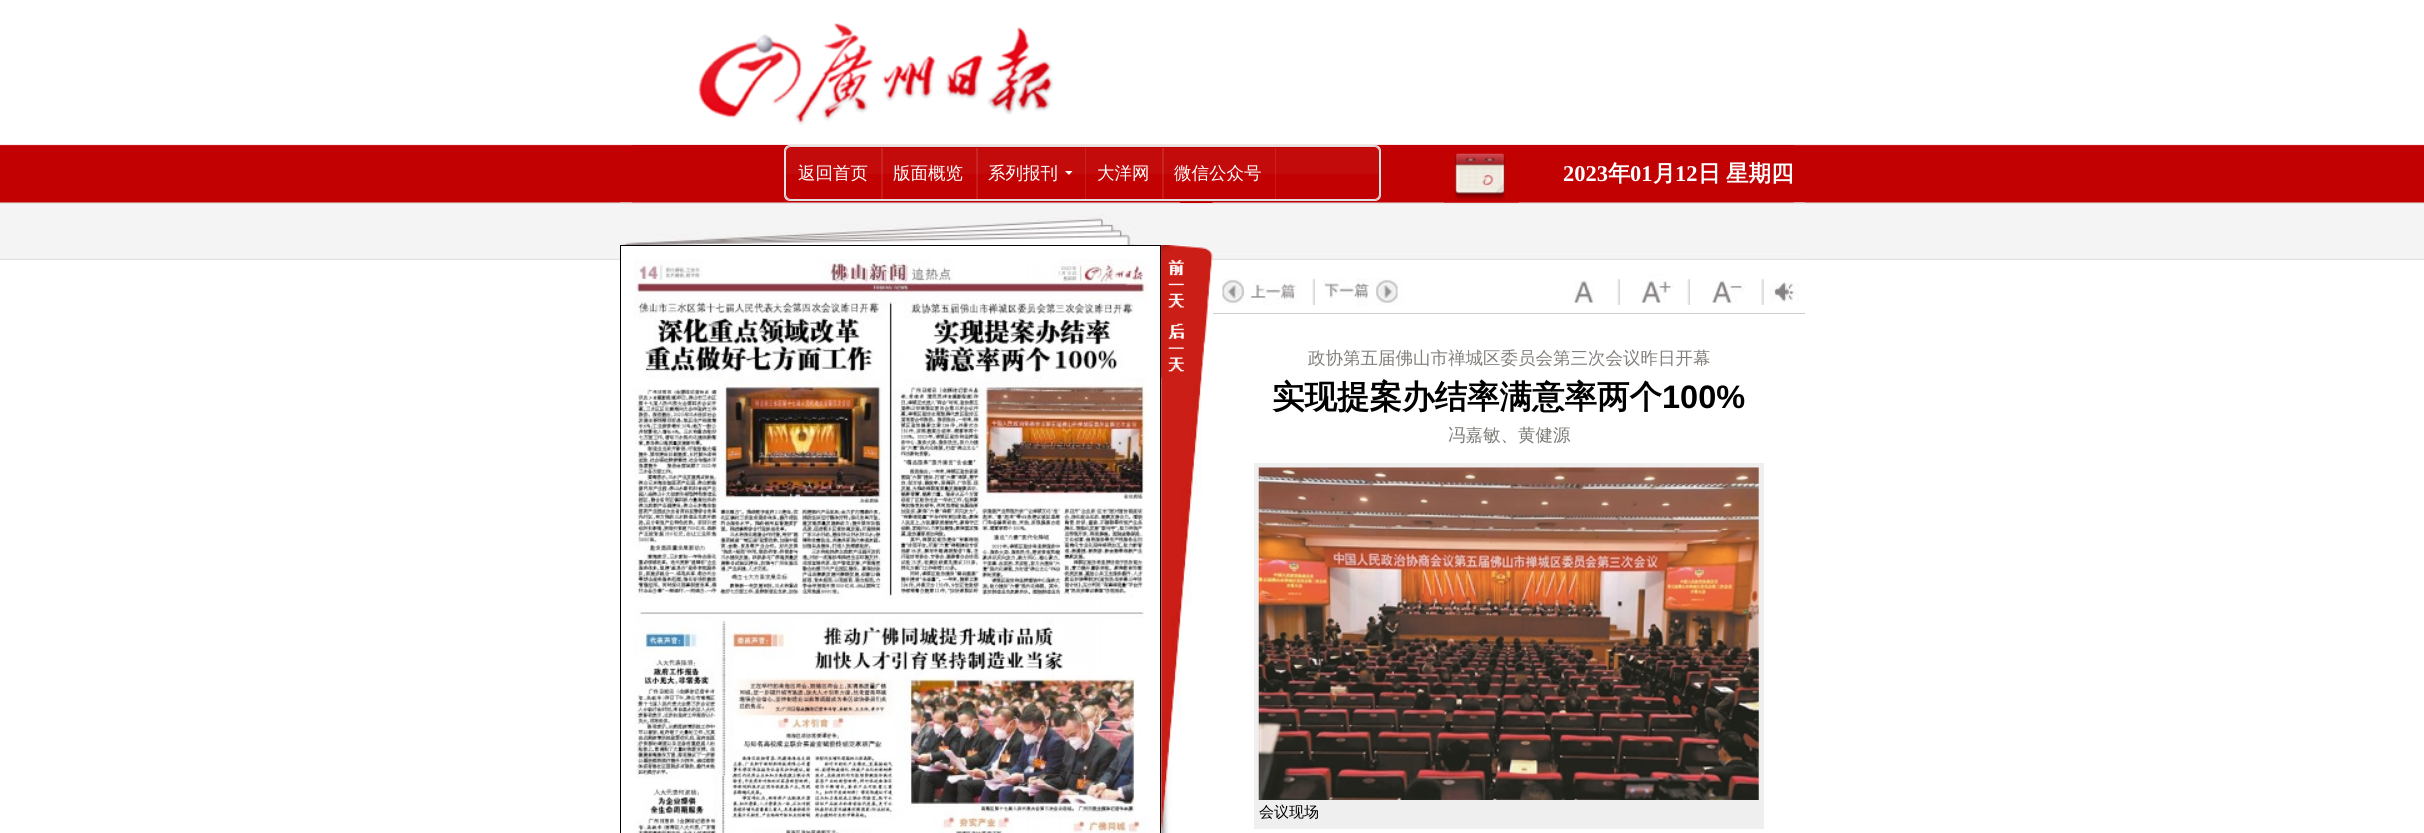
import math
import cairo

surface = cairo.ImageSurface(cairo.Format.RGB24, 2424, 833)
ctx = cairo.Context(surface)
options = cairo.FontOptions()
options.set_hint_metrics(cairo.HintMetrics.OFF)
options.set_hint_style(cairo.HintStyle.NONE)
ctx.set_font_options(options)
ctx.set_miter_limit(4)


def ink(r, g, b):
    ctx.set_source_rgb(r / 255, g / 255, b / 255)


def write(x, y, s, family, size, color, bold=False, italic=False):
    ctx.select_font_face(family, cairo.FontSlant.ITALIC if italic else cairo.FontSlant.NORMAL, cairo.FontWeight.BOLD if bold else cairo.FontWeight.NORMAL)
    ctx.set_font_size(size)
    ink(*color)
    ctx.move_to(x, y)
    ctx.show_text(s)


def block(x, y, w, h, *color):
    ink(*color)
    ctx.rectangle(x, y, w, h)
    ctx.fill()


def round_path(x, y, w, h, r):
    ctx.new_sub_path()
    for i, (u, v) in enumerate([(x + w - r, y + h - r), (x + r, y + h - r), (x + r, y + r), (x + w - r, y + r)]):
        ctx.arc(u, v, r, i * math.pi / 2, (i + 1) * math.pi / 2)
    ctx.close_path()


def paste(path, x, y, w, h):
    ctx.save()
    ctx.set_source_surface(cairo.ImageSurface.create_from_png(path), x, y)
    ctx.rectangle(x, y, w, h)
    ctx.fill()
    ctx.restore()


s1 = dict(family="WenQuanYi Zen Hei Medium", size=17.5, color=(255, 255, 255))
s2 = dict(family="Liberation Serif", size=22.5, color=(255, 255, 255), bold=True)
s3 = dict(family="WenQuanYi Zen Hei", size=22.5, color=(255, 255, 255), bold=True)
s4 = dict(family="WenQuanYi Zen Hei Medium", size=17.5, color=(130, 126, 123))
s5 = dict(family="WenQuanYi Zen Hei", size=32.5, color=(0, 0, 0), bold=True)
s6 = dict(family="Liberation Sans", size=32.5, color=(0, 0, 0), bold=True)
s7 = dict(family="WenQuanYi Zen Hei Medium", size=17.5, color=(121, 120, 115))
s8 = dict(family="WenQuanYi Zen Hei Medium", size=15, color=(0, 0, 0))

ink(255, 255, 255)
ctx.paint()
paste("pic1.png", 0, 144, 2424, 116)
block(620, 144, 1185, 116, 255, 255, 255)
paste("pic2.png", 620, 144, 1185, 116)
paste("pic3.png", 698, 23, 355, 102)
block(632, 145, 1162, 58, 194, 1, 2)
ink(255, 255, 255)
round_path(784.5, 145.5, 596, 55, 5.5)
ctx.fill_preserve()
ink(225, 225, 225)
ctx.set_line_width(1)
ctx.stroke()
ink(194, 1, 2)
round_path(785, 146, 595, 54, 6)
ctx.fill()
ctx.set_source_rgba(1, 1, 1, 0.04)
ctx.rectangle(785, 148, 595, 26)
ctx.fill()
round_path(785.5, 146.5, 594, 53, 5.5)
ink(225, 225, 225)
ctx.stroke()
ctx.set_source_rgba(1, 1, 1, 0.1)
ctx.new_path()
ctx.move_to(788, 199)
ctx.line_to(883, 199)
ctx.line_to(883, 148)
ctx.line_to(881, 148)
ctx.line_to(881, 199)
ctx.close_path()
ctx.fill()
write(798, 179, "返回首页", **s1)
ctx.set_source_rgba(1, 1, 1, 0.1)
ctx.new_path()
ctx.move_to(883, 199)
ctx.line_to(978, 199)
ctx.line_to(978, 148)
ctx.line_to(976, 148)
ctx.line_to(976, 199)
ctx.close_path()
ctx.fill()
write(893, 179, "版面概览", **s1)
ctx.set_source_rgba(1, 1, 1, 0.1)
ctx.new_path()
ctx.move_to(978, 199)
ctx.line_to(1086, 199)
ctx.line_to(1086, 148)
ctx.line_to(1085, 148)
ctx.line_to(1085, 199)
ctx.close_path()
ctx.fill()
write(988, 179, "系列报刊", **s1)
ctx.new_path()
ctx.move_to(1065, 171)
ctx.line_to(1072.5, 171)
ctx.line_to(1069, 175)
ctx.close_path()
ctx.fill()
ctx.set_source_rgba(1, 1, 1, 0.1)
ctx.new_path()
ctx.move_to(1086, 199)
ctx.line_to(1164, 199)
ctx.line_to(1164, 148)
ctx.line_to(1162, 148)
ctx.line_to(1162, 199)
ctx.close_path()
ctx.fill()
write(1097, 179, "大洋网", **s1)
ctx.set_source_rgba(1, 1, 1, 0.1)
ctx.new_path()
ctx.move_to(1164, 199)
ctx.line_to(1276, 199)
ctx.line_to(1276, 148)
ctx.line_to(1275, 148)
ctx.line_to(1275, 199)
ctx.close_path()
ctx.fill()
write(1174, 179, "微信公众号", **s1)
paste("pic7.png", 1161, 245, 52, 588)
paste("pic8.png", 1161, 245, 52, 133)
paste("pic11.png", 1212, 202, 593, 58)
paste("pic4.png", 1443, 153, 76, 50)
write(1563, 181, "2023", **s2)
write(1608, 181, "年", **s3)
write(1630, 181, "01", **s2)
write(1653, 181, "月", **s3)
write(1675, 181, "12", **s2)
write(1698, 181, "日", **s3)
write(1726, 181, "星期四", **s3)
paste("pic5.png", 620, 202, 560, 43)
block(621, 246, 539, 14, 255, 255, 255)
ctx.rectangle(620.5, 245.5, 540, 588)
ink(0, 0, 0)
ctx.stroke()
paste("pic6.png", 634, 259, 514, 574)
paste("pic9.png", 1161, 245, 52, 69)
paste("pic10.png", 1161, 313, 50, 65)
block(1213, 313, 592, 1, 204, 204, 204)
paste("pic12.png", 1222, 278, 78, 27)
paste("pic13.png", 1312, 278, 3, 27)
paste("pic14.png", 1322, 278, 81, 28)
paste("pic15.png", 1573, 280, 22, 23)
paste("pic13.png", 1617, 278, 3, 27)
paste("pic16.png", 1641, 274, 33, 29)
paste("pic13.png", 1687, 278, 3, 27)
paste("pic17.png", 1712, 280, 33, 23)
paste("pic18.png", 1761, 278, 3, 27)
paste("pic19.png", 1770, 282, 29, 20)
write(1308, 364, "政协第五届佛山市禅城区委员会第三次会议昨日开幕", **s4)
write(1272, 408, "实现提案办结率满意率两个", **s5)
write(1662, 408, "100%", **s6)
write(1448, 441, "冯嘉敏、黄健源", **s7)
block(1254, 463, 510, 366, 239, 239, 239)
paste("pic20.png", 1258, 467, 501, 333)
write(1259, 817, "会议现场", **s8)
surface.write_to_png("screenshot.png")
